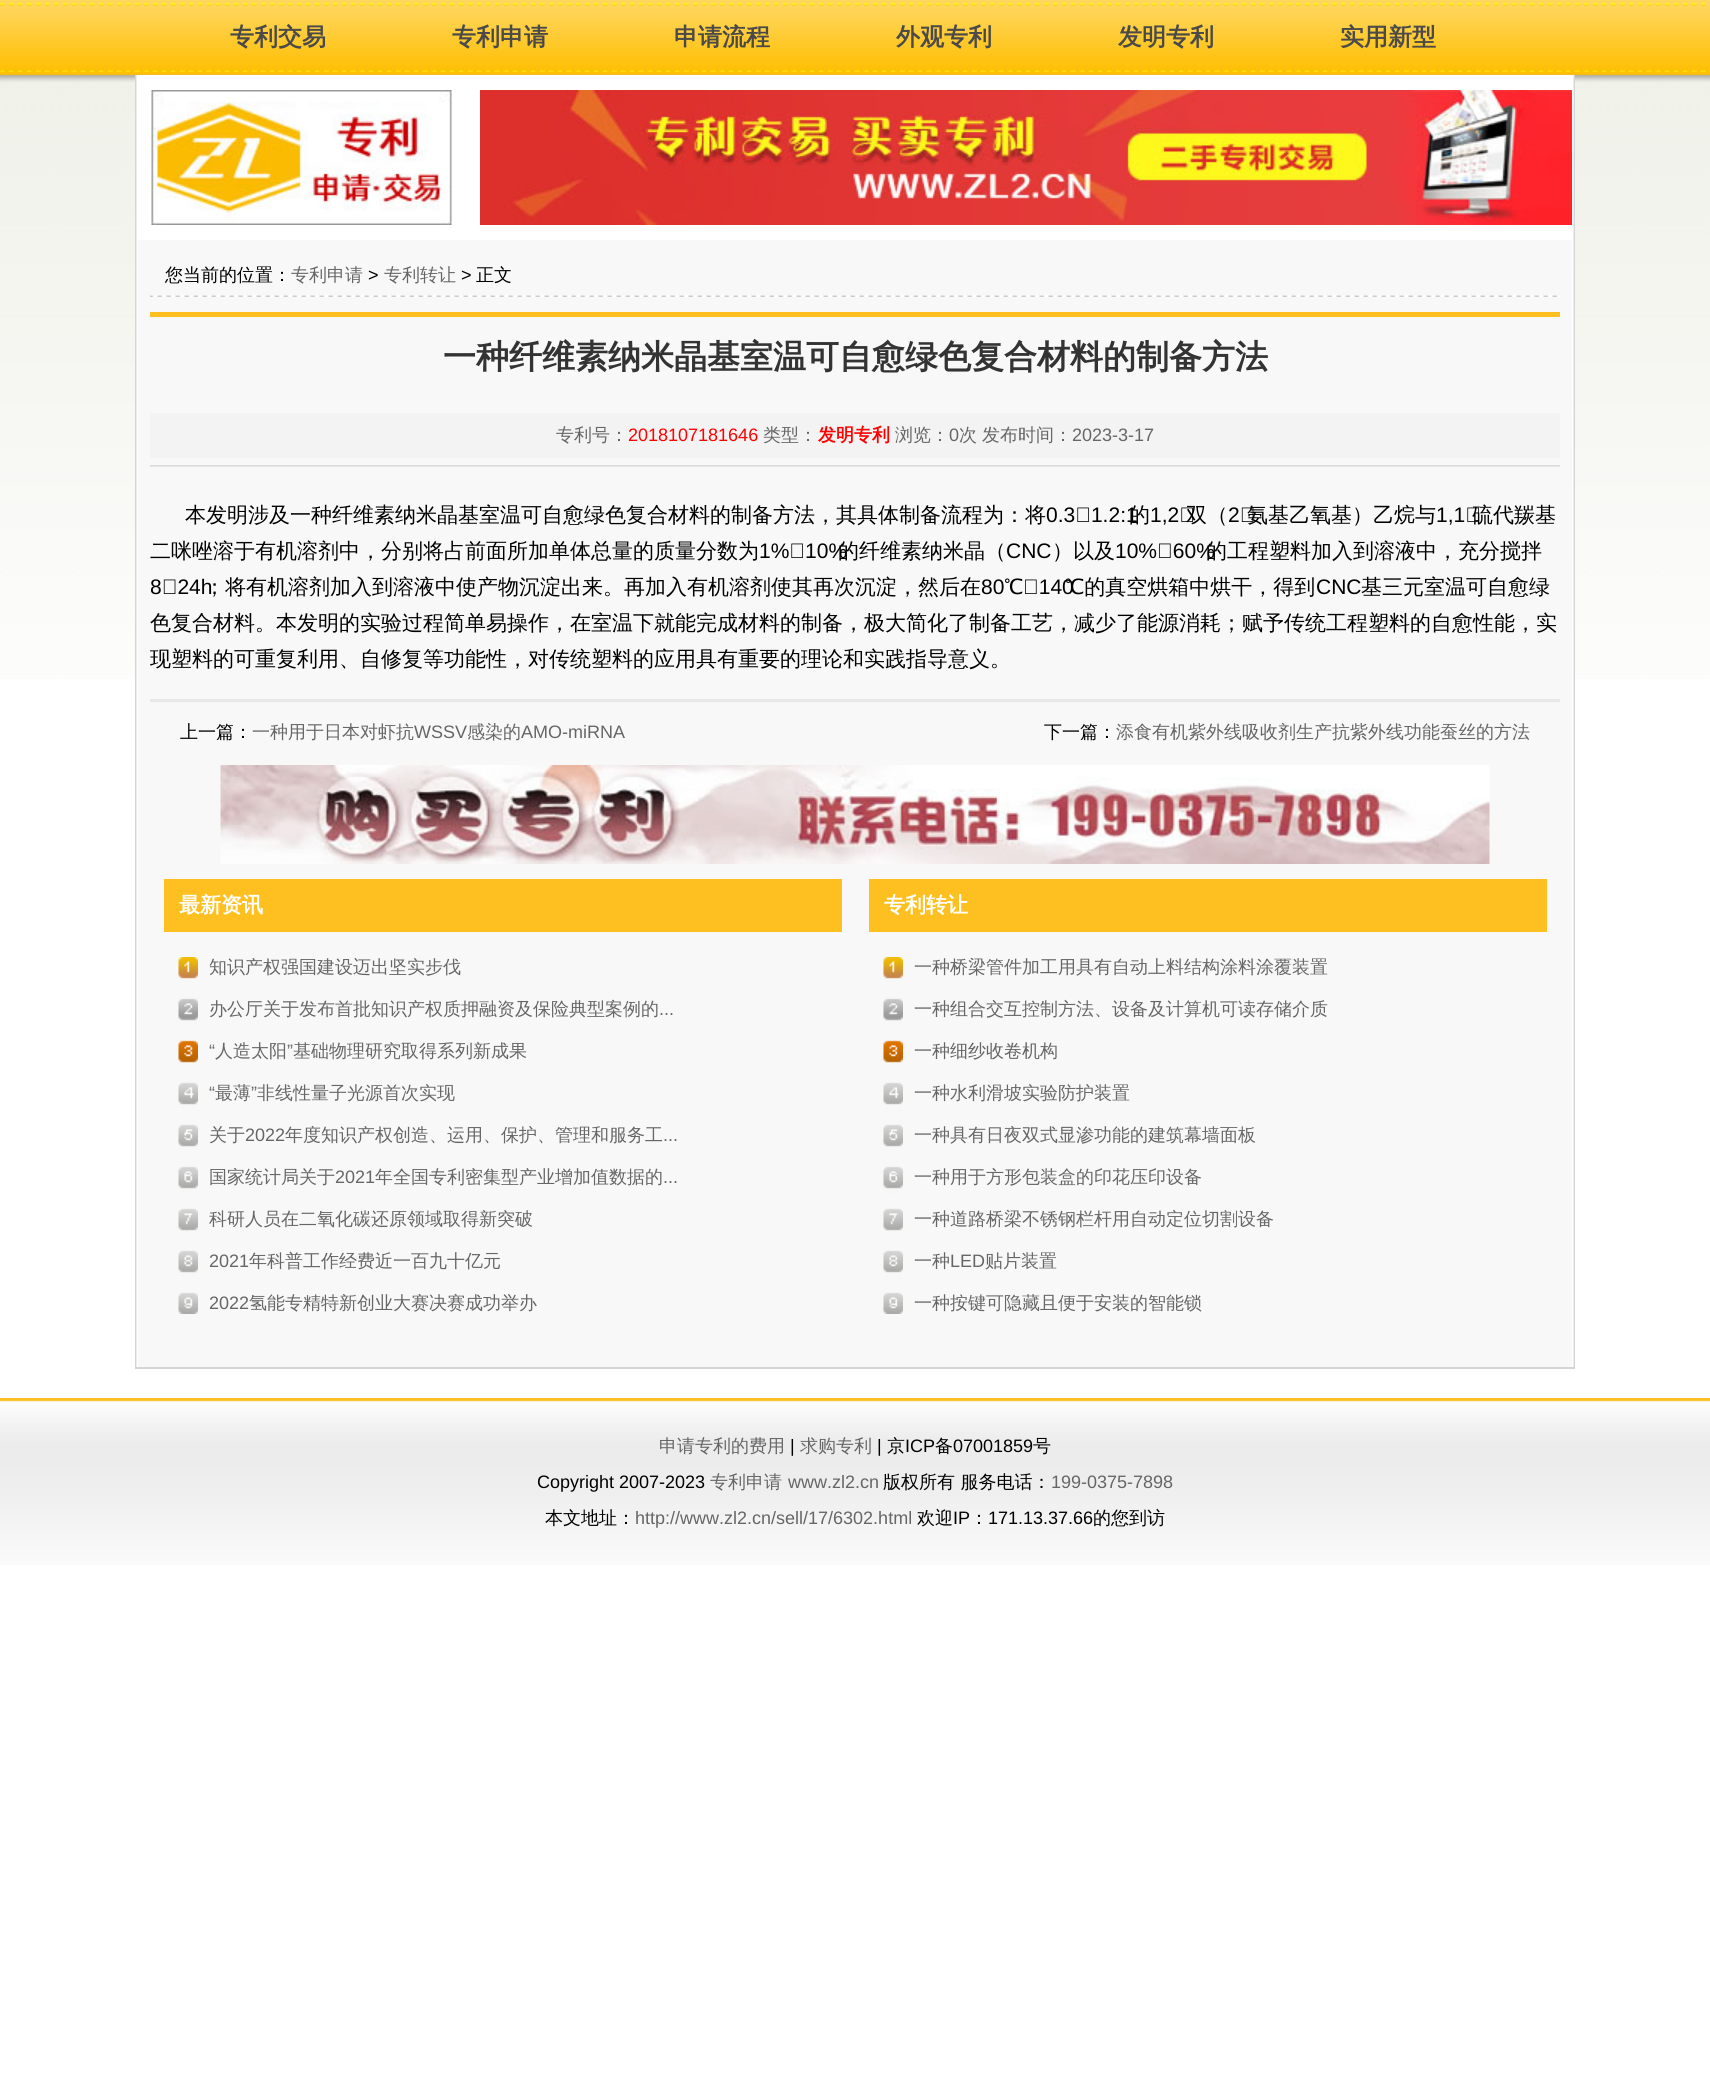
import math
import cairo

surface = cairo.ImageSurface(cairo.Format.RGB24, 1710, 2088)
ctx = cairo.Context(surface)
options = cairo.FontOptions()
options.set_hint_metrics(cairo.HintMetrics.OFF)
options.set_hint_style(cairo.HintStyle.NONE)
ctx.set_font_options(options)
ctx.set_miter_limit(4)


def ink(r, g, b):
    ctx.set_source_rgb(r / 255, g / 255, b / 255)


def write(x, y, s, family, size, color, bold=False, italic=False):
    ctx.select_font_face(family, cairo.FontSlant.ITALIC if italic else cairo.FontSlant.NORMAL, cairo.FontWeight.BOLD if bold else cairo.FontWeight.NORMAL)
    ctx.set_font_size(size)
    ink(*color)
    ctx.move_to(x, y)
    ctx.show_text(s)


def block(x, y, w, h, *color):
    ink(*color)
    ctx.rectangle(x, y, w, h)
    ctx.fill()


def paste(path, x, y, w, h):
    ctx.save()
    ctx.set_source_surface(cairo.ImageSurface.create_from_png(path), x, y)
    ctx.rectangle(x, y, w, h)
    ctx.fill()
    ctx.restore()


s1 = dict(family="WenQuanYi Zen Hei", size=24, color=(75, 74, 72), bold=True)
s2 = dict(family="WenQuanYi Zen Hei Medium", size=18, color=(0, 0, 0))
s3 = dict(family="WenQuanYi Zen Hei Medium", size=18, color=(102, 102, 102))
s4 = dict(family="Liberation Sans", size=18, color=(0, 0, 0))
s5 = dict(family="WenQuanYi Zen Hei", size=33, color=(51, 51, 51), bold=True)
s6 = dict(family="Liberation Sans", size=18, color=(255, 0, 0))
s7 = dict(family="WenQuanYi Zen Hei", size=18, color=(255, 0, 0), bold=True)
s8 = dict(family="Liberation Sans", size=18, color=(102, 102, 102))
s9 = dict(family="WenQuanYi Zen Hei Medium", size=21, color=(0, 0, 0))
s10 = dict(family="Liberation Sans", size=21, color=(0, 0, 0))
s11 = dict(family="WenQuanYi Zen Hei", size=21, color=(255, 255, 255), bold=True)

ink(255, 255, 255)
ctx.paint()
paste("pic1.png", 0, 0, 1710, 679)
write(230, 45, "专利交易", **s1)
write(452, 45, "专利申请", **s1)
write(674, 45, "申请流程", **s1)
write(896, 45, "外观专利", **s1)
write(1118, 45, "发明专利", **s1)
write(1340, 45, "实用新型", **s1)
paste("pic2.png", 135, 75, 1440, 1292)
paste("pic3.png", 151, 90, 301, 135)
paste("pic4.png", 480, 90, 1092, 135)
block(138, 240, 1434, 1127, 248, 248, 248)
paste("pic5.png", 150, 295, 1410, 2)
write(165, 281, "您当前的位置：", **s2)
write(291, 281, "专利申请", **s3)
write(368, 281, ">", **s4)
write(384, 281, "专利转让", **s3)
write(461, 281, ">", **s4)
write(476, 281, "正文", **s2)
block(150, 312, 1410, 5, 254, 192, 33)
paste("pic6.png", 150, 465, 1410, 2)
write(443, 368, "一种纤维素纳米晶基室温可自愈绿色复合材料的制备方法", **s5)
block(150, 413, 1410, 45, 243, 243, 243)
write(556, 441, "专利号：", **s3)
write(628, 441, "2018107181646", **s6)
write(763, 441, "类型：", **s3)
write(818, 441, "发明专利", **s7)
write(895, 441, "浏览：", **s3)
write(949, 441, "0", **s8)
write(959, 441, "次", **s3)
write(982, 441, "发布时间：", **s3)
write(1072, 441, "2023-3-17", **s8)
write(185, 522, "本发明涉及一种纤维素纳米晶基室温可自愈绿色复合材料的制备方法，其具体制备流程为：将", **s9)
write(1046, 522, "0.3‑1.2:1", **s10)
write(1129, 522, "的", **s9)
write(1150, 522, "1,2‑", **s10)
write(1186, 522, "双（", **s9)
write(1228, 522, "2‑", **s10)
write(1247, 522, "氨基乙氧基）乙烷与", **s9)
write(1436, 522, "1,1‑", **s10)
write(1472, 522, "硫代羰基", **s9)
write(150, 558, "二咪唑溶于有机溶剂中，分别将占前面所加单体总量的质量分数为", **s9)
write(759, 558, "1%‑10%", **s10)
write(838, 558, "的纤维素纳米晶（", **s9)
write(1006, 558, "CNC", **s10)
write(1052, 558, "）以及", **s9)
write(1115, 558, "10%‑60%", **s10)
write(1206, 558, "的工程塑料加入到溶液中，充分搅拌", **s9)
write(150, 594, "8‑24h", **s10)
write(204, 594, "；将有机溶剂加入到溶液中使产物沉淀出来。再加入有机溶剂使其再次沉淀，然后在", **s9)
write(981, 594, "80", **s10)
write(1004, 594, "℃", **s9)
write(1023, 594, "‑140", **s10)
write(1065, 594, "℃的真空烘箱中烘干，得到", **s9)
write(1316, 594, "CNC", **s10)
write(1361, 594, "基三元室温可自愈绿", **s9)
write(150, 630, "色复合材料。本发明的实验过程简单易操作，在室温下就能完成材料的制备，极大简化了制备工艺，减少了能源消耗；赋予传统工程塑料的自愈性能，实", **s9)
write(150, 666, "现塑料的可重复利用、自修复等功能性，对传统塑料的应用具有重要的理论和实践指导意义。", **s9)
block(150, 699, 1410, 3, 233, 232, 232)
write(180, 738, "上一篇：", **s2)
write(252, 738, "一种用于日本对虾抗", **s3)
write(414, 738, "WSSV", **s8)
write(467, 738, "感染的", **s3)
write(521, 738, "AMO-miRNA", **s8)
write(1044, 738, "下一篇：", **s2)
write(1116, 738, "添食有机紫外线吸收剂生产抗紫外线功能蚕丝的方法", **s3)
paste("pic7.png", 220, 765, 1270, 99)
block(164, 879, 678, 53, 254, 192, 33)
write(179, 912, "最新资讯", **s11)
paste("pic8.png", 178, 957, 20, 357)
write(209, 973, "知识产权强国建设迈出坚实步伐", **s3)
write(209, 1015, "办公厅关于发布首批知识产权质押融资及保险典型案例的", **s3)
write(659, 1015, "...", **s8)
write(209, 1057, "“", **s8)
write(215, 1057, "人造太阳", **s3)
write(287, 1057, "”", **s8)
write(293, 1057, "基础物理研究取得系列新成果", **s3)
write(209, 1099, "“", **s8)
write(215, 1099, "最薄", **s3)
write(251, 1099, "”", **s8)
write(257, 1099, "非线性量子光源首次实现", **s3)
write(209, 1141, "关于", **s3)
write(245, 1141, "2022", **s8)
write(285, 1141, "年度知识产权创造、运用、保护、管理和服务工", **s3)
write(663, 1141, "...", **s8)
write(209, 1183, "国家统计局关于", **s3)
write(335, 1183, "2021", **s8)
write(375, 1183, "年全国专利密集型产业增加值数据的", **s3)
write(663, 1183, "...", **s8)
write(209, 1225, "科研人员在二氧化碳还原领域取得新突破", **s3)
write(209, 1267, "2021", **s8)
write(249, 1267, "年科普工作经费近一百九十亿元", **s3)
write(209, 1309, "2022", **s8)
write(249, 1309, "氢能专精特新创业大赛决赛成功举办", **s3)
block(869, 879, 678, 53, 254, 192, 33)
write(884, 912, "专利转让", **s11)
paste("pic8.png", 883, 957, 20, 357)
write(914, 973, "一种桥梁管件加工用具有自动上料结构涂料涂覆装置", **s3)
write(914, 1015, "一种组合交互控制方法、设备及计算机可读存储介质", **s3)
write(914, 1057, "一种细纱收卷机构", **s3)
write(914, 1099, "一种水利滑坡实验防护装置", **s3)
write(914, 1141, "一种具有日夜双式显渗功能的建筑幕墙面板", **s3)
write(914, 1183, "一种用于方形包装盒的印花压印设备", **s3)
write(914, 1225, "一种道路桥梁不锈钢栏杆用自动定位切割设备", **s3)
write(914, 1267, "一种", **s3)
write(950, 1267, "LED", **s8)
write(985, 1267, "贴片装置", **s3)
write(914, 1309, "一种按键可隐藏且便于安装的智能锁", **s3)
block(135, 1367, 1440, 2, 213, 213, 213)
paste("pic9.png", 0, 1398, 1710, 167)
write(659, 1452, "申请专利的费用", **s3)
write(790, 1452, "|", **s4)
write(800, 1452, "求购专利", **s3)
write(877, 1452, "|", **s4)
write(887, 1452, "京", **s2)
write(905, 1452, "ICP", **s4)
write(935, 1452, "备", **s2)
write(953, 1452, "07001859", **s4)
write(1033, 1452, "号", **s2)
write(537, 1488, "Copyright 2007-2023", **s4)
write(710, 1488, "专利申请", **s3)
write(788, 1488, "www.zl2.cn", **s8)
write(883, 1488, "版权所有 服务电话：", **s2)
write(1051, 1488, "199-0375-7898", **s8)
write(545, 1524, "本文地址：", **s2)
write(635, 1524, "http://www.zl2.cn/sell/17/6302.html", **s8)
write(917, 1524, "欢迎", **s2)
write(953, 1524, "IP", **s4)
write(970, 1524, "：", **s2)
write(988, 1524, "171.13.37.66", **s4)
write(1093, 1524, "的您到访", **s2)
surface.write_to_png("screenshot.png")
